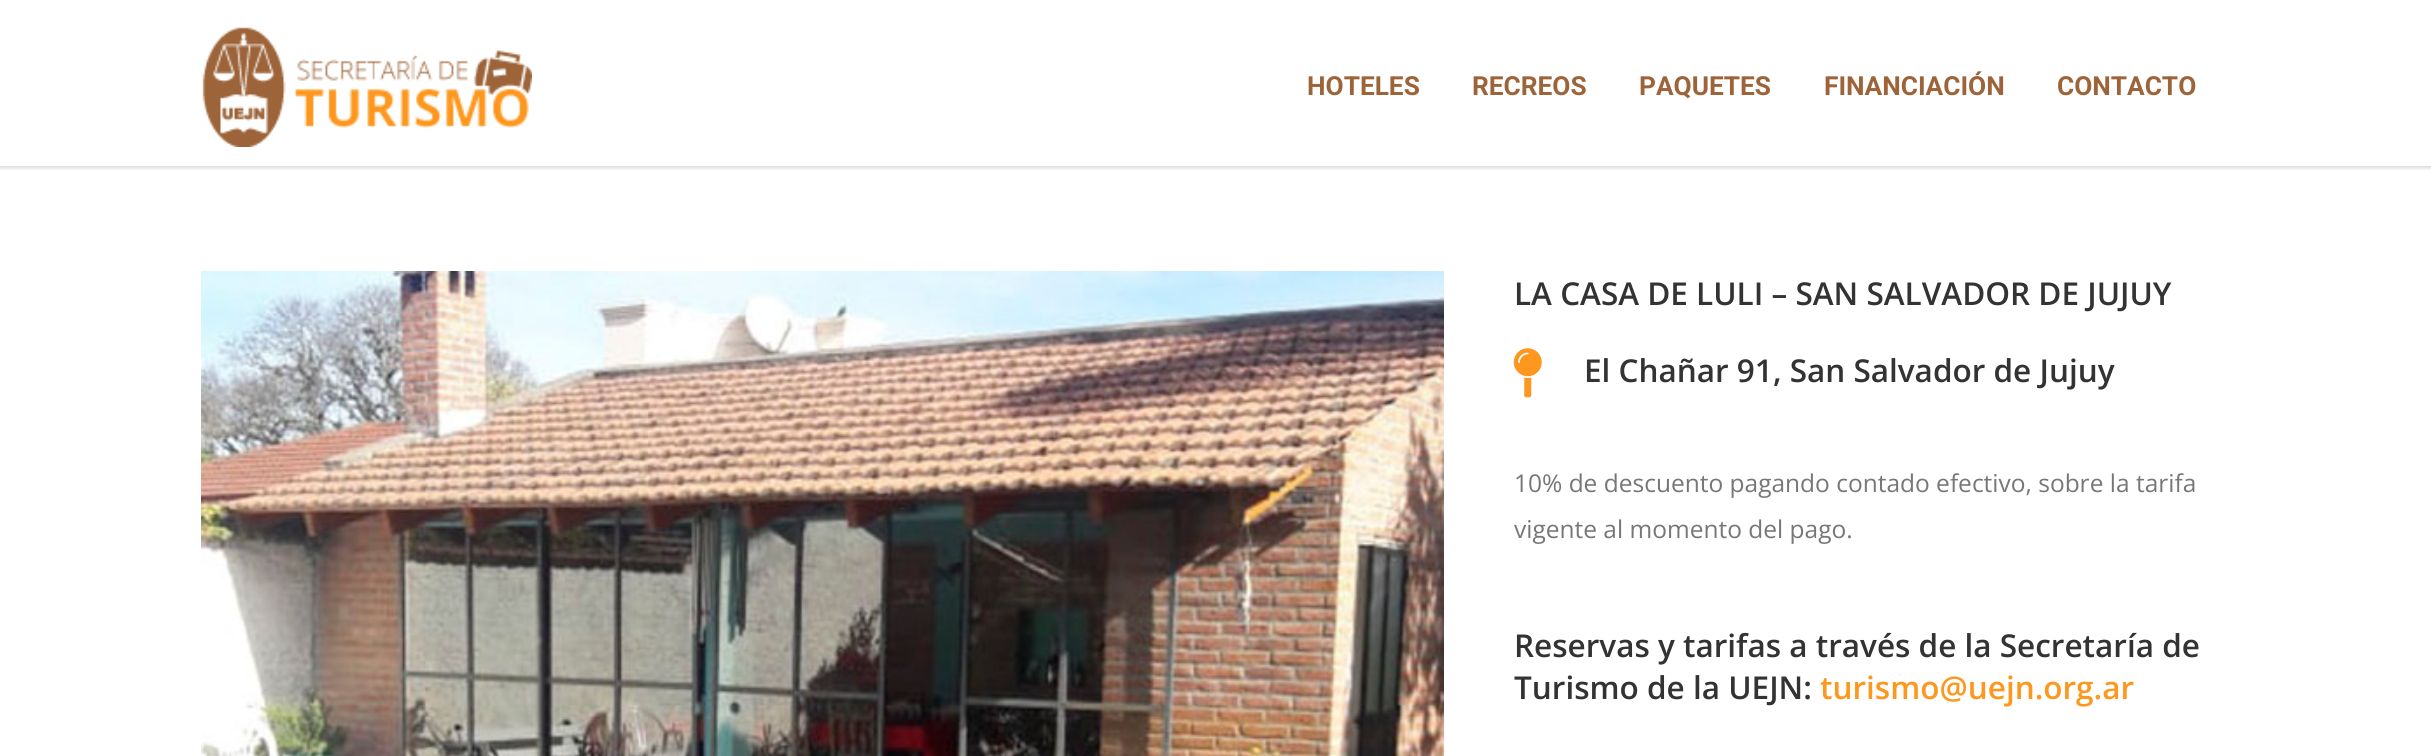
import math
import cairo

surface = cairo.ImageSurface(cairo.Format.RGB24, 2431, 756)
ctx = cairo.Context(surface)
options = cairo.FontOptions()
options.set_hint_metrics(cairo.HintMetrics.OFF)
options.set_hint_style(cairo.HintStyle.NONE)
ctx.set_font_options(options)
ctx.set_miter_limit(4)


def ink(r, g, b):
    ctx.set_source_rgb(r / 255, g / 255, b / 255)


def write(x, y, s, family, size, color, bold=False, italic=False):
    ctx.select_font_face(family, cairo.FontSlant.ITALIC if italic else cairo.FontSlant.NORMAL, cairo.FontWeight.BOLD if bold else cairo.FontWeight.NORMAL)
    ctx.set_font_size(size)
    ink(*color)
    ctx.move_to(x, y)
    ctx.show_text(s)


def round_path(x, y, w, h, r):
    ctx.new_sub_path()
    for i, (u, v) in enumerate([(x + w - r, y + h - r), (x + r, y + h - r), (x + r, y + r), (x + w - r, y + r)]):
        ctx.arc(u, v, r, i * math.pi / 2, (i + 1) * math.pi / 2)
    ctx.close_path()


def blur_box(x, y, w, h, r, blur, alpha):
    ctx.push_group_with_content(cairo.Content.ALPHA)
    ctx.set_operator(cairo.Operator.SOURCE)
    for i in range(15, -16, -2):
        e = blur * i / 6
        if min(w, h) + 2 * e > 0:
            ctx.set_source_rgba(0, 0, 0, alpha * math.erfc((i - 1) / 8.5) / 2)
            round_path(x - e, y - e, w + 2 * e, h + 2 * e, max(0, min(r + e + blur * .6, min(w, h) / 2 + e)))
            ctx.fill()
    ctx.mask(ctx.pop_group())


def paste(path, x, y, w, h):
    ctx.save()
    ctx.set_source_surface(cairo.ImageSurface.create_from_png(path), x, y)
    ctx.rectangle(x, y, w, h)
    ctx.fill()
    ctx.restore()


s1 = dict(family="Roboto", size=26.25, color=(157, 100, 57), bold=True)
s2 = dict(family="Open Sans SemiBold", size=31.5, color=(51, 51, 51))
s3 = dict(family="Open Sans", size=24.5, color=(119, 119, 119))
s4 = dict(family="Open Sans SemiBold", size=31.5, color=(253, 151, 30))

ink(255, 255, 255)
ctx.paint()
ctx.save()
ctx.rectangle(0, 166, 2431, 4)
ctx.clip()
ink(0, 0, 0)
blur_box(-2, -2, 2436, 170, 0, 2, 0.16)
ctx.restore()
paste("pic1.png", 202, 27, 330, 120)
write(1307, 95, "HOTELES", **s1)
write(1472, 95, "RECREOS", **s1)
write(1639, 95, "PAQUETES", **s1)
write(1824, 95, "FINANCIACIÓN", **s1)
write(2057, 95, "CONTACTO", **s1)
paste("pic2.png", 201, 271, 1243, 485)
write(1514, 305, "LA CASA DE LULI – SAN SALVADOR DE JUJUY", **s2)
paste("pic3.png", 1513, 348, 29, 50)
write(1584, 382, "El Chañar 91, San Salvador de Jujuy", **s2)
write(1514, 492, "10% de descuento pagando contado efectivo, sobre la tarifa", **s3)
write(1514, 538, "vigente al momento del pago.", **s3)
write(1514, 657, "Reservas y tarifas a través de la Secretaría de", **s2)
write(1514, 699, "Turismo de la UEJN:", **s2)
write(1820, 699, "turismo@uejn.org.ar", **s4)
surface.write_to_png("screenshot.png")
